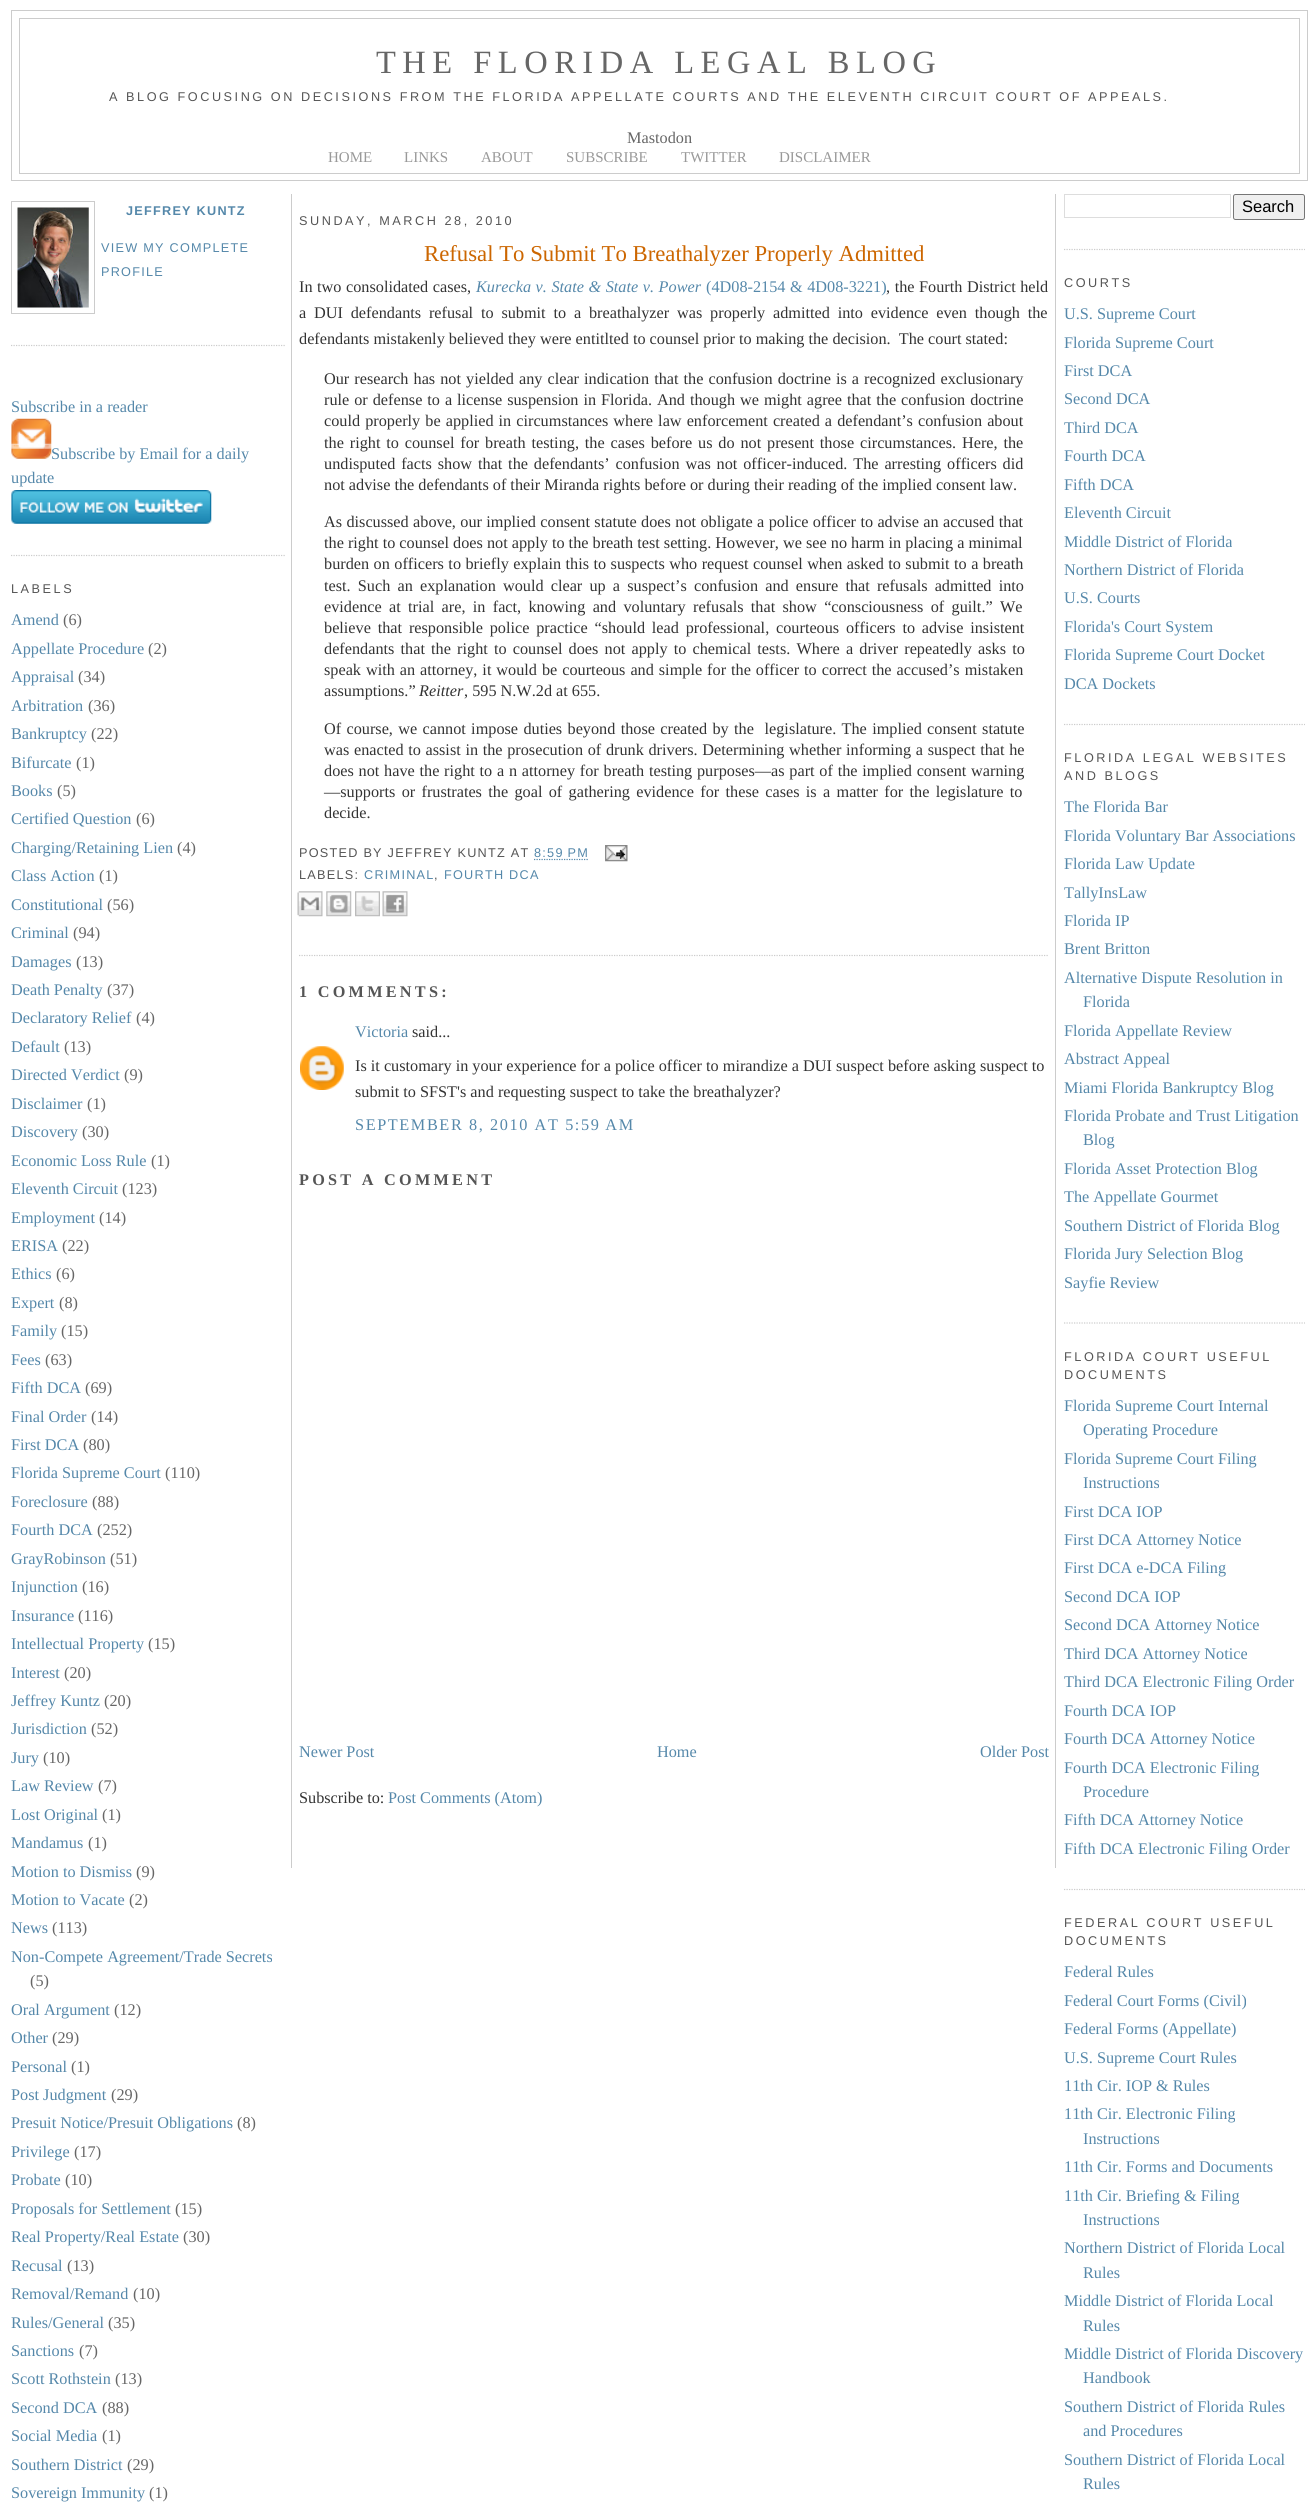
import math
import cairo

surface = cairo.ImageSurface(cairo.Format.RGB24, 1316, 2503)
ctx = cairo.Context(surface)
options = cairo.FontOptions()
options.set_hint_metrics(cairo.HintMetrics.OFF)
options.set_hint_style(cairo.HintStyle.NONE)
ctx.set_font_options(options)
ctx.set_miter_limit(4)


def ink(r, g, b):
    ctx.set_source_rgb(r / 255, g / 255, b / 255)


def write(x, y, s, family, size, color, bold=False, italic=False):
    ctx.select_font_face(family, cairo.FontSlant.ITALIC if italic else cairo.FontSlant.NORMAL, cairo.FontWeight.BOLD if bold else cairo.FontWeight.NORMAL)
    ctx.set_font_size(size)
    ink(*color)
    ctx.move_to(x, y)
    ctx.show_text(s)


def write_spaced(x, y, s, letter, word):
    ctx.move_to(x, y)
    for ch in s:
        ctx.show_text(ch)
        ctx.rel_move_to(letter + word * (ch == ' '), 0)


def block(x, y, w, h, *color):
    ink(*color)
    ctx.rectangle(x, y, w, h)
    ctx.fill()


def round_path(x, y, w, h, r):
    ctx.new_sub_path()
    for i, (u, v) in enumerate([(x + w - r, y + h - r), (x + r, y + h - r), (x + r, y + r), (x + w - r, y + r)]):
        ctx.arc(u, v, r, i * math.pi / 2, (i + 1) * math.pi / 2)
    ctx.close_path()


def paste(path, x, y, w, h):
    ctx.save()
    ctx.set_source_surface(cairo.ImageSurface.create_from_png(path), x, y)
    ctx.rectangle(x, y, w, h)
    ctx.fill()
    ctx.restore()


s1 = dict(family="Liberation Serif", size=16.25, color=(102, 102, 102))
s2 = dict(family="Liberation Serif", size=15, color=(153, 153, 153))
s3 = dict(family="Liberation Serif", size=16.25, color=(85, 136, 170))
s4 = dict(family="Liberation Serif", size=22.75, color=(204, 102, 0))
s5 = dict(family="Liberation Serif", size=16.25, color=(51, 51, 51))
s6 = dict(family="Liberation Serif", size=16.25, color=(51, 51, 51), italic=True)
s7 = dict(family="Liberation Sans", size=16.5, color=(0, 0, 0))

ink(255, 255, 255)
ctx.paint()
ctx.rectangle(11.5, 10.5, 1296, 170)
ink(204, 204, 204)
ctx.set_line_width(1)
ctx.stroke()
ctx.rectangle(19.5, 18.5, 1280, 155)
ctx.stroke()
ctx.select_font_face("Liberation Serif")
ctx.set_font_size(32.5)
ink(102, 102, 102)
write_spaced(376, 73, "THE FLORIDA LEGAL BLOG", 6.5, 0)
ctx.select_font_face("Liberation Sans")
ctx.set_font_size(12.68)
ink(85, 85, 85)
write_spaced(109, 101, "A BLOG FOCUSING ON DECISIONS FROM THE FLORIDA APPELLATE COURTS AND THE ELEVENTH CIRCUIT COURT OF APPEALS.", 2.54, 0)
write(627, 143, "Mastodon", **s1)
write(328, 162, "HOME", **s2)
write(404, 162, "LINKS", **s2)
write(481, 162, "ABOUT", **s2)
write(566, 162, "SUBSCRIBE", **s2)
write(681, 162, "TWITTER", **s2)
write(779, 162, "DISCLAIMER", **s2)
ctx.new_path()
ctx.move_to(11, 345.5)
ctx.line_to(285, 345.5)
ink(204, 204, 204)
ctx.set_line_width(1.2)
ctx.set_dash([1.25, 1.25])
ctx.stroke()
ctx.rectangle(11.5, 201.5, 83, 112)
ctx.set_line_width(1)
ctx.set_dash([])
ctx.stroke()
paste("pic1.png", 17, 207, 72, 101)
ctx.select_font_face("Liberation Sans", cairo.FontSlant.NORMAL, cairo.FontWeight.BOLD)
ctx.set_font_size(12.68)
ink(85, 136, 170)
write_spaced(126, 215, "JEFFREY KUNTZ", 1.25, 0)
ctx.select_font_face("Liberation Sans")
write_spaced(101, 252, "VIEW MY COMPLETE", 1.25, 0)
write_spaced(101, 276, "PROFILE", 1.25, 0)
ctx.new_path()
ctx.move_to(11, 555.5)
ctx.line_to(285, 555.5)
ink(204, 204, 204)
ctx.set_line_width(1.2)
ctx.set_dash([1.25, 1.25])
ctx.stroke()
write(11, 412, "Subscribe in a reader", **s3)
paste("pic2.png", 11, 418, 41, 41)
write(51, 459, "Subscribe by Email for a daily", **s3)
write(11, 483, "update", **s3)
paste("pic3.png", 11, 490, 201, 34)
ctx.select_font_face("Liberation Sans")
ctx.set_font_size(12.68)
ink(85, 85, 85)
write_spaced(11, 593, "LABELS", 2.54, 0)
write(11, 625, "Amend", **s3)
write(63, 625, "(6)", **s1)
write(11, 654, "Appellate Procedure", **s3)
write(148, 654, "(2)", **s1)
write(11, 682, "Appraisal", **s3)
write(78, 682, "(34)", **s1)
write(11, 711, "Arbitration", **s3)
write(88, 711, "(36)", **s1)
write(11, 739, "Bankruptcy", **s3)
write(91, 739, "(22)", **s1)
write(11, 768, "Bifurcate", **s3)
write(76, 768, "(1)", **s1)
write(11, 796, "Books", **s3)
write(57, 796, "(5)", **s1)
write(11, 824, "Certified Question", **s3)
write(136, 824, "(6)", **s1)
write(11, 853, "Charging/Retaining Lien", **s3)
write(177, 853, "(4)", **s1)
write(11, 881, "Class Action", **s3)
write(99, 881, "(1)", **s1)
write(11, 910, "Constitutional", **s3)
write(107, 910, "(56)", **s1)
write(11, 938, "Criminal", **s3)
write(73, 938, "(94)", **s1)
write(11, 967, "Damages", **s3)
write(76, 967, "(13)", **s1)
write(11, 995, "Death Penalty", **s3)
write(107, 995, "(37)", **s1)
write(11, 1023, "Declaratory Relief", **s3)
write(136, 1023, "(4)", **s1)
write(11, 1052, "Default", **s3)
write(64, 1052, "(13)", **s1)
write(11, 1080, "Directed Verdict", **s3)
write(124, 1080, "(9)", **s1)
write(11, 1109, "Disclaimer", **s3)
write(87, 1109, "(1)", **s1)
write(11, 1137, "Discovery", **s3)
write(82, 1137, "(30)", **s1)
write(11, 1166, "Economic Loss Rule", **s3)
write(151, 1166, "(1)", **s1)
write(11, 1194, "Eleventh Circuit", **s3)
write(122, 1194, "(123)", **s1)
write(11, 1223, "Employment", **s3)
write(99, 1223, "(14)", **s1)
write(11, 1251, "ERISA", **s3)
write(62, 1251, "(22)", **s1)
write(11, 1279, "Ethics", **s3)
write(56, 1279, "(6)", **s1)
write(11, 1308, "Expert", **s3)
write(59, 1308, "(8)", **s1)
write(11, 1336, "Family", **s3)
write(61, 1336, "(15)", **s1)
write(11, 1365, "Fees", **s3)
write(45, 1365, "(63)", **s1)
write(11, 1393, "Fifth DCA", **s3)
write(85, 1393, "(69)", **s1)
write(11, 1422, "Final Order", **s3)
write(91, 1422, "(14)", **s1)
write(11, 1450, "First DCA", **s3)
write(83, 1450, "(80)", **s1)
write(11, 1478, "Florida Supreme Court", **s3)
write(165, 1478, "(110)", **s1)
write(11, 1507, "Foreclosure", **s3)
write(92, 1507, "(88)", **s1)
write(11, 1535, "Fourth DCA", **s3)
write(97, 1535, "(252)", **s1)
write(11, 1564, "GrayRobinson", **s3)
write(110, 1564, "(51)", **s1)
write(11, 1592, "Injunction", **s3)
write(82, 1592, "(16)", **s1)
write(11, 1621, "Insurance", **s3)
write(78, 1621, "(116)", **s1)
write(11, 1649, "Intellectual Property", **s3)
write(148, 1649, "(15)", **s1)
write(11, 1678, "Interest", **s3)
write(64, 1678, "(20)", **s1)
write(11, 1706, "Jeffrey Kuntz", **s3)
write(104, 1706, "(20)", **s1)
write(11, 1734, "Jurisdiction", **s3)
write(91, 1734, "(52)", **s1)
write(11, 1763, "Jury", **s3)
write(43, 1763, "(10)", **s1)
write(11, 1791, "Law Review", **s3)
write(98, 1791, "(7)", **s1)
write(11, 1820, "Lost Original", **s3)
write(102, 1820, "(1)", **s1)
write(11, 1848, "Mandamus", **s3)
write(88, 1848, "(1)", **s1)
write(11, 1877, "Motion to Dismiss", **s3)
write(136, 1877, "(9)", **s1)
write(11, 1905, "Motion to Vacate", **s3)
write(129, 1905, "(2)", **s1)
write(11, 1933, "News", **s3)
write(52, 1933, "(113)", **s1)
write(11, 1962, "Non-Compete Agreement/Trade Secrets", **s3)
write(30, 1986, "(5)", **s1)
write(11, 2015, "Oral Argument", **s3)
write(114, 2015, "(12)", **s1)
write(11, 2043, "Other", **s3)
write(52, 2043, "(29)", **s1)
write(11, 2072, "Personal", **s3)
write(71, 2072, "(1)", **s1)
write(11, 2100, "Post Judgment", **s3)
write(111, 2100, "(29)", **s1)
write(11, 2128, "Presuit Notice/Presuit Obligations", **s3)
write(237, 2128, "(8)", **s1)
write(11, 2157, "Privilege", **s3)
write(74, 2157, "(17)", **s1)
write(11, 2185, "Probate", **s3)
write(65, 2185, "(10)", **s1)
write(11, 2214, "Proposals for Settlement", **s3)
write(175, 2214, "(15)", **s1)
write(11, 2242, "Real Property/Real Estate", **s3)
write(183, 2242, "(30)", **s1)
write(11, 2271, "Recusal", **s3)
write(67, 2271, "(13)", **s1)
write(11, 2299, "Removal/Remand", **s3)
write(133, 2299, "(10)", **s1)
write(11, 2328, "Rules/General", **s3)
write(108, 2328, "(35)", **s1)
write(11, 2356, "Sanctions", **s3)
write(79, 2356, "(7)", **s1)
write(11, 2384, "Scott Rothstein", **s3)
write(115, 2384, "(13)", **s1)
write(11, 2413, "Second DCA", **s3)
write(102, 2413, "(88)", **s1)
write(11, 2441, "Social Media", **s3)
write(102, 2441, "(1)", **s1)
write(11, 2470, "Southern District", **s3)
write(127, 2470, "(29)", **s1)
write(11, 2498, "Sovereign Immunity", **s3)
write(149, 2498, "(1)", **s1)
block(1055, 194, 1, 1674, 204, 204, 204)
block(291, 194, 1, 1674, 204, 204, 204)
ctx.select_font_face("Liberation Sans")
ctx.set_font_size(12.68)
ink(85, 85, 85)
write_spaced(299, 225, "SUNDAY, MARCH 28, 2010", 2.54, 0)
ctx.new_path()
ctx.move_to(299, 955.5)
ctx.line_to(1049, 955.5)
ink(204, 204, 204)
ctx.stroke()
write(424, 261, "Refusal To Submit To Breathalyzer Properly Admitted", **s4)
ctx.set_font_size(16.25)
ink(51, 51, 51)
write_spaced(299, 292, "In two consolidated cases,", 0, 0.5)
ctx.select_font_face("Liberation Serif", cairo.FontSlant.ITALIC)
ink(85, 136, 170)
write_spaced(476, 292, "Kurecka v. State & State v. Power", 0, 0.5)
ctx.select_font_face("Liberation Serif")
write_spaced(706, 292, "(4D08-2154 & 4D08-3221)", 0, 0.5)
ink(51, 51, 51)
write_spaced(886, 292, ", the Fourth District held", 0, 0.5)
write_spaced(299, 318, "a DUI defendants refusal to submit to a breathalyzer was properly admitted into evidence even though the", 0, 3.75)
write(299, 344, "defendants mistakenly believed they were entitlted to counsel prior to making the decision.  The court stated:", **s5)
write_spaced(324, 384, "Our research has not yielded any clear indication that the confusion doctrine is a recognized exclusionary", 0, 1)
write_spaced(324, 405, "rule or defense to a license suspension in Florida. And though we might agree that the confusion doctrine", 0, 0.9)
write_spaced(324, 426, "could properly be applied in circumstances where law enforcement created a defendant’s confusion about", 0, 1)
write_spaced(324, 448, "the right to counsel for breath testing, the cases before us do not present those circumstances. Here, the", 0, 1.8)
write_spaced(324, 469, "undisputed facts show that the defendants’ confusion was not officer-induced. The arresting officers did", 0, 1.8)
write(324, 490, "not advise the defendants of their Miranda rights before or during their reading of the implied consent law.", **s5)
write_spaced(324, 527, "As discussed above, our implied consent statute does not obligate a police officer to advise an accused that", 0, 0.3)
write(324, 548, "the right to counsel does not apply to the breath test setting. However, we see no harm in placing a minimal", **s5)
write_spaced(324, 569, "burden on officers to briefly explain this to suspects who request counsel when asked to submit to a breath", 0, 0.4)
write_spaced(324, 591, "test. Such an explanation would clear up a suspect’s confusion and ensure that refusals admitted into", 0, 3.1)
write_spaced(324, 612, "evidence at trial are, in fact, knowing and voluntary refusals that show “consciousness of guilt.” We", 0, 3.25)
write_spaced(324, 633, "believe that responsible police practice “should lead professional, courteous officers to advise insistent", 0, 2.75)
write_spaced(324, 654, "defendants that the right to counsel does not apply to chemical tests. Where a driver repeatedly asks to", 0, 2.1)
write_spaced(324, 675, "speak with an attorney, it would be courteous and simple for the officer to correct the accused’s mistaken", 0, 0.9)
write(324, 696, "assumptions.”", **s5)
write(419, 696, "Reitter", **s6)
write(464, 696, ", 595 N.W.2d at 655.", **s5)
write_spaced(324, 734, "Of course, we cannot impose duties beyond those created by the  legislature. The implied consent statute", 0, 1.25)
write_spaced(324, 755, "was enacted to assist in the prosecution of drunk drivers. Determining whether informing a suspect that he", 0, 0.6)
write_spaced(324, 776, "does not have the right to a n attorney for breath testing purposes—as part of the implied consent warning", 0, 0.7)
write_spaced(324, 797, "—supports or frustrates the goal of gathering evidence for these cases is a matter for the legislature to", 0, 2.25)
write(324, 818, "decide.", **s5)
ctx.select_font_face("Liberation Sans")
ctx.set_font_size(12.68)
ink(85, 85, 85)
write_spaced(299, 857, "POSTED BY JEFFREY KUNTZ AT", 1.25, 0)
ink(85, 136, 170)
write_spaced(534, 857, "8:59 PM", 1.25, 0)
ctx.new_path()
ctx.move_to(534, 859.5)
ctx.line_to(589, 859.5)
ctx.stroke()
paste("pic4.png", 605, 845, 23, 17)
ink(85, 85, 85)
write_spaced(299, 879, "LABELS:", 1.25, 0)
ink(85, 136, 170)
write_spaced(364, 879, "CRIMINAL", 1.25, 0)
ink(85, 85, 85)
write_spaced(434, 879, ",", 1.25, 0)
ink(85, 136, 170)
write_spaced(444, 879, "FOURTH DCA", 1.25, 0)
paste("pic5.png", 297, 891, 26, 26)
paste("pic6.png", 326, 891, 26, 26)
paste("pic7.png", 355, 891, 25, 26)
paste("pic8.png", 382, 891, 26, 26)
ctx.select_font_face("Liberation Serif", cairo.FontSlant.NORMAL, cairo.FontWeight.BOLD)
ctx.set_font_size(16.25)
ink(85, 85, 85)
write_spaced(299, 997, "1 COMMENTS:", 3.25, 0)
write(355, 1037, "Victoria", **s3)
write(412, 1037, "said...", **s5)
paste("pic9.png", 300, 1046, 44, 44)
write(355, 1071, "Is it customary in your experience for a police officer to mirandize a DUI suspect before asking suspect to", **s5)
write(355, 1097, "submit to SFST's and requesting suspect to take the breathalyzer?", **s5)
ink(85, 136, 170)
write_spaced(355, 1130, "SEPTEMBER 8, 2010 AT 5:59 AM", 1.6, 0)
ctx.select_font_face("Liberation Serif", cairo.FontSlant.NORMAL, cairo.FontWeight.BOLD)
ink(85, 85, 85)
write_spaced(299, 1185, "POST A COMMENT", 3.25, 0)
write(299, 1757, "Newer Post", **s3)
write(657, 1757, "Home", **s3)
write(980, 1757, "Older Post", **s3)
write(299, 1803, "Subscribe to:", **s5)
write(388, 1803, "Post Comments (Atom)", **s3)
ctx.new_path()
ctx.move_to(1064, 249.5)
ctx.line_to(1305, 249.5)
ink(204, 204, 204)
ctx.stroke()
ctx.rectangle(1064.5, 194.5, 166, 23)
ink(221, 221, 221)
ctx.set_line_width(1)
ctx.set_dash([])
ctx.stroke()
ink(239, 239, 239)
round_path(1233.5, 194.5, 71, 25, 2)
ctx.fill_preserve()
ink(118, 118, 118)
ctx.stroke()
write(1242, 212, "Search", **s7)
ctx.new_path()
ctx.move_to(1064, 724.5)
ctx.line_to(1305, 724.5)
ink(204, 204, 204)
ctx.set_line_width(1.2)
ctx.set_dash([1.25, 1.25])
ctx.stroke()
ctx.set_font_size(12.68)
ink(85, 85, 85)
write_spaced(1064, 287, "COURTS", 2.54, 0)
write(1064, 319, "U.S. Supreme Court", **s3)
write(1064, 348, "Florida Supreme Court", **s3)
write(1064, 376, "First DCA", **s3)
write(1064, 404, "Second DCA", **s3)
write(1064, 433, "Third DCA", **s3)
write(1064, 461, "Fourth DCA", **s3)
write(1064, 490, "Fifth DCA", **s3)
write(1064, 518, "Eleventh Circuit", **s3)
write(1064, 547, "Middle District of Florida", **s3)
write(1064, 575, "Northern District of Florida", **s3)
write(1064, 603, "U.S. Courts", **s3)
write(1064, 632, "Florida's Court System", **s3)
write(1064, 660, "Florida Supreme Court Docket", **s3)
write(1064, 689, "DCA Dockets", **s3)
ctx.new_path()
ctx.move_to(1064, 1323)
ctx.line_to(1305, 1323)
ink(204, 204, 204)
ctx.stroke()
ctx.select_font_face("Liberation Sans")
ctx.set_font_size(12.68)
ink(85, 85, 85)
write_spaced(1064, 762, "FLORIDA LEGAL WEBSITES", 2.54, 0)
write_spaced(1064, 780, "AND BLOGS", 2.54, 0)
write(1064, 812, "The Florida Bar", **s3)
write(1064, 841, "Florida Voluntary Bar Associations", **s3)
write(1064, 869, "Florida Law Update", **s3)
write(1064, 898, "TallyInsLaw", **s3)
write(1064, 926, "Florida IP", **s3)
write(1064, 954, "Brent Britton", **s3)
write(1064, 983, "Alternative Dispute Resolution in", **s3)
write(1083, 1007, "Florida", **s3)
write(1064, 1036, "Florida Appellate Review", **s3)
write(1064, 1064, "Abstract Appeal", **s3)
write(1064, 1093, "Miami Florida Bankruptcy Blog", **s3)
write(1064, 1121, "Florida Probate and Trust Litigation", **s3)
write(1083, 1145, "Blog", **s3)
write(1064, 1174, "Florida Asset Protection Blog", **s3)
write(1064, 1202, "The Appellate Gourmet", **s3)
write(1064, 1231, "Southern District of Florida Blog", **s3)
write(1064, 1259, "Florida Jury Selection Blog", **s3)
write(1064, 1288, "Sayfie Review", **s3)
ctx.new_path()
ctx.move_to(1064, 1889.5)
ctx.line_to(1305, 1889.5)
ink(204, 204, 204)
ctx.stroke()
ctx.select_font_face("Liberation Sans")
ctx.set_font_size(12.68)
ink(85, 85, 85)
write_spaced(1064, 1361, "FLORIDA COURT USEFUL", 2.54, 0)
write_spaced(1064, 1379, "DOCUMENTS", 2.54, 0)
write(1064, 1411, "Florida Supreme Court Internal", **s3)
write(1083, 1435, "Operating Procedure", **s3)
write(1064, 1464, "Florida Supreme Court Filing", **s3)
write(1083, 1488, "Instructions", **s3)
write(1064, 1517, "First DCA IOP", **s3)
write(1064, 1545, "First DCA Attorney Notice", **s3)
write(1064, 1573, "First DCA e-DCA Filing", **s3)
write(1064, 1602, "Second DCA IOP", **s3)
write(1064, 1630, "Second DCA Attorney Notice", **s3)
write(1064, 1659, "Third DCA Attorney Notice", **s3)
write(1064, 1687, "Third DCA Electronic Filing Order", **s3)
write(1064, 1716, "Fourth DCA IOP", **s3)
write(1064, 1744, "Fourth DCA Attorney Notice", **s3)
write(1064, 1773, "Fourth DCA Electronic Filing", **s3)
write(1083, 1797, "Procedure", **s3)
write(1064, 1825, "Fifth DCA Attorney Notice", **s3)
write(1064, 1854, "Fifth DCA Electronic Filing Order", **s3)
ctx.select_font_face("Liberation Sans")
ctx.set_font_size(12.68)
ink(85, 85, 85)
write_spaced(1064, 1927, "FEDERAL COURT USEFUL", 2.54, 0)
write_spaced(1064, 1945, "DOCUMENTS", 2.54, 0)
write(1064, 1977, "Federal Rules", **s3)
write(1064, 2006, "Federal Court Forms (Civil)", **s3)
write(1064, 2034, "Federal Forms (Appellate)", **s3)
write(1064, 2063, "U.S. Supreme Court Rules", **s3)
write(1064, 2091, "11th Cir. IOP & Rules", **s3)
write(1064, 2119, "11th Cir. Electronic Filing", **s3)
write(1083, 2144, "Instructions", **s3)
write(1064, 2172, "11th Cir. Forms and Documents", **s3)
write(1064, 2201, "11th Cir. Briefing & Filing", **s3)
write(1083, 2225, "Instructions", **s3)
write(1064, 2253, "Northern District of Florida Local", **s3)
write(1083, 2278, "Rules", **s3)
write(1064, 2306, "Middle District of Florida Local", **s3)
write(1083, 2331, "Rules", **s3)
write(1064, 2359, "Middle District of Florida Discovery", **s3)
write(1083, 2383, "Handbook", **s3)
write(1064, 2412, "Southern District of Florida Rules", **s3)
write(1083, 2436, "and Procedures", **s3)
write(1064, 2465, "Southern District of Florida Local", **s3)
write(1083, 2489, "Rules", **s3)
surface.write_to_png("screenshot.png")
